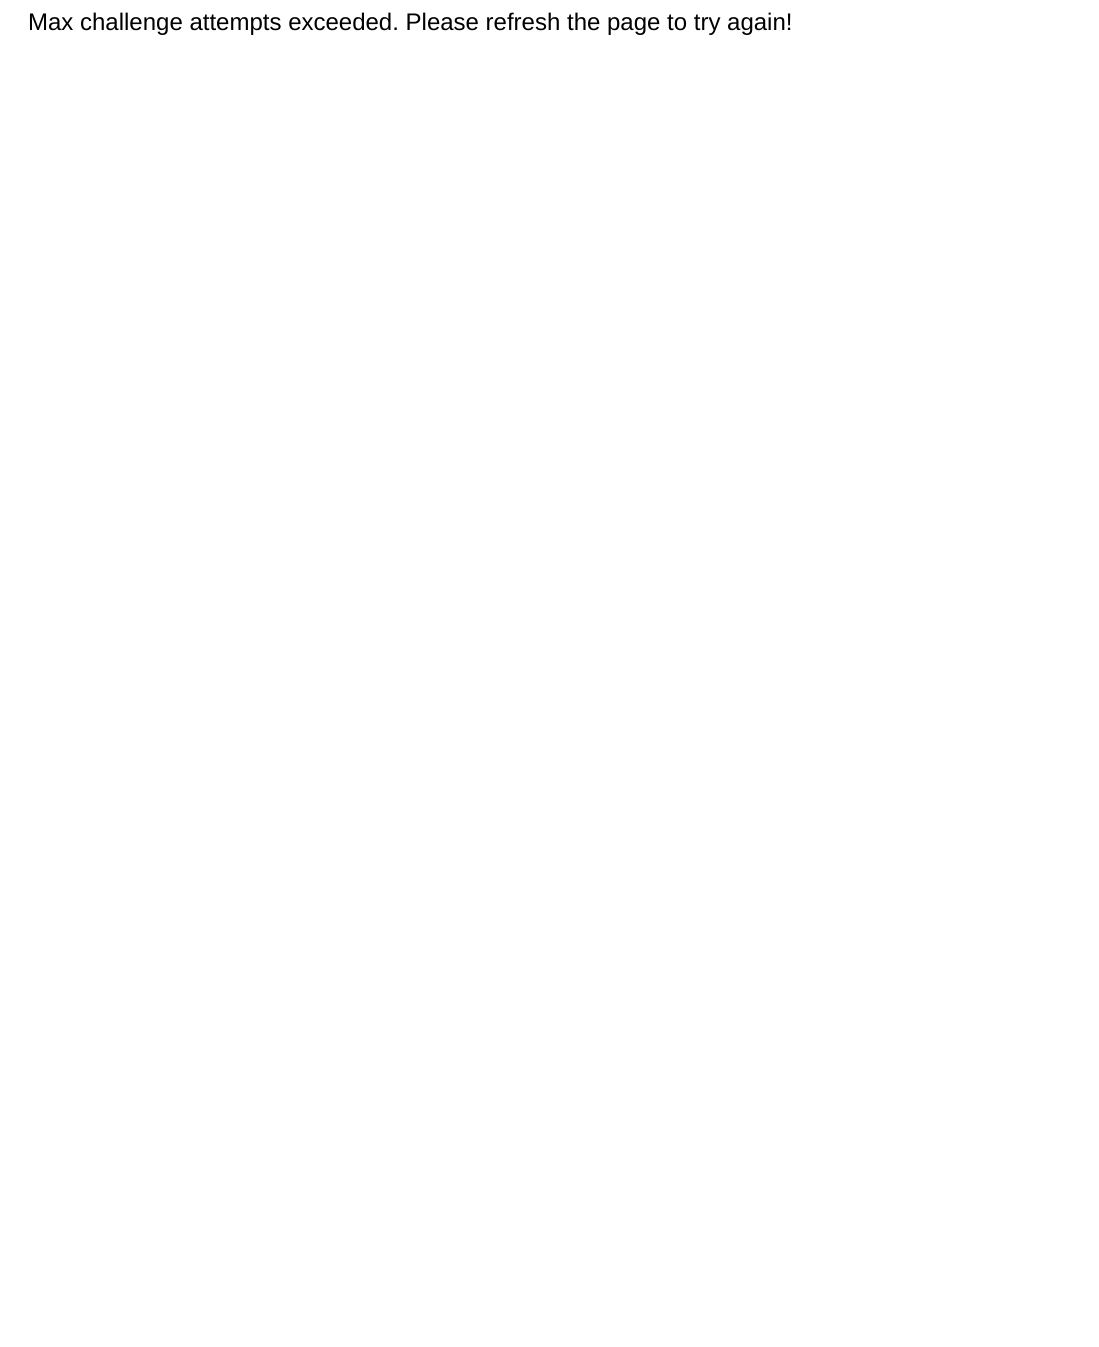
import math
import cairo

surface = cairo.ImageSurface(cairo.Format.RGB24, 1099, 1347)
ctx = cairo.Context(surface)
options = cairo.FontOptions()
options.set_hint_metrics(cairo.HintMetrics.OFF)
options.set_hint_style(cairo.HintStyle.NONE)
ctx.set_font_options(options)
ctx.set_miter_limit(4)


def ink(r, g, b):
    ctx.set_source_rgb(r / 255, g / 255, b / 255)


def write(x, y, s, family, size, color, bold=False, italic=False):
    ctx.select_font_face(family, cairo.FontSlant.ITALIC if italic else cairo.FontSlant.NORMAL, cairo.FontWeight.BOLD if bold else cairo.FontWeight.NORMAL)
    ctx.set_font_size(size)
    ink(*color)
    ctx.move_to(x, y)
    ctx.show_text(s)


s1 = dict(family="Liberation Sans", size=24, color=(0, 0, 0))

ink(255, 255, 255)
ctx.paint()
write(28, 30, "Max challenge attempts exceeded. Please refresh the page to try again!", **s1)
surface.write_to_png("screenshot.png")
